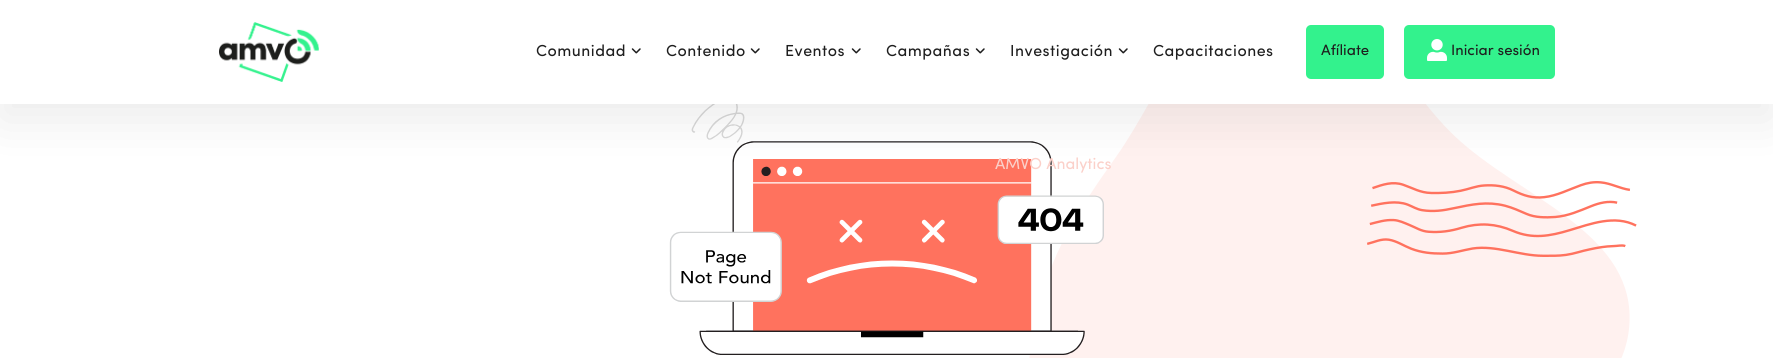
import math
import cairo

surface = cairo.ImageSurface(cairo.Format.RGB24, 1773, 358)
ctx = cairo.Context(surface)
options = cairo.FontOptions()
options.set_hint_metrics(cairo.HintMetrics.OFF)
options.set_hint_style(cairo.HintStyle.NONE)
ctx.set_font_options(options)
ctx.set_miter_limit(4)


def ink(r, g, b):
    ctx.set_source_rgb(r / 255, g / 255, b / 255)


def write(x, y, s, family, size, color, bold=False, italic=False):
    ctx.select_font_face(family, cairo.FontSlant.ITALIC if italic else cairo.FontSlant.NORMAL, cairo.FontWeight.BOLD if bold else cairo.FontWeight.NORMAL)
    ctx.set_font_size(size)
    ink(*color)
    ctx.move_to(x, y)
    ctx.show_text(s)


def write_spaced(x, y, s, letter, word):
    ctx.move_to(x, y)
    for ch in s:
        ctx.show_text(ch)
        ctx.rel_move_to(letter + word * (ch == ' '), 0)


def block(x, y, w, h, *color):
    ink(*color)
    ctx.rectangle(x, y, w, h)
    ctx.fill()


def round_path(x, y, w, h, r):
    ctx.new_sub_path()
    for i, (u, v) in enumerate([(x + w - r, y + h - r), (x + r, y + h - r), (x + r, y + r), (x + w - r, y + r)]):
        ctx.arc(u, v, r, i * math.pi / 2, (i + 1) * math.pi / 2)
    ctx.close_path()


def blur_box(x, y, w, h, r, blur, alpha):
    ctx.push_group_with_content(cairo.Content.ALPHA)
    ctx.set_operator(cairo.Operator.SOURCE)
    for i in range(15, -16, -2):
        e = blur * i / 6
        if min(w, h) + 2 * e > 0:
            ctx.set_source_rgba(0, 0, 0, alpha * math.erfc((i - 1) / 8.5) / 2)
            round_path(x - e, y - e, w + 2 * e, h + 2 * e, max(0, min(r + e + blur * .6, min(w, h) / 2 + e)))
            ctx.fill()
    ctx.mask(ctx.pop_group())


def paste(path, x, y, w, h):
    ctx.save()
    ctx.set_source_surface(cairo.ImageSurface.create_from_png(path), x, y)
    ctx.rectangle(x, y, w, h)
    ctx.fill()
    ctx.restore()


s1 = dict(family="Sofia", size=16, color=(251, 208, 201))
s2 = dict(family="Sofia", size=15, color=(30, 30, 30))

ink(255, 255, 255)
ctx.paint()
paste("pic5.png", 1029, 104, 608, 254)
paste("pic4.png", 669, 104, 435, 251)
ink(0, 0, 0)
blur_box(0, 16, 1773, 104, 0, 24, 0.08)
block(0, 0, 1773, 104, 255, 255, 255)
paste("pic1.png", 219, 22, 100, 60)
ctx.select_font_face("Sofia")
ctx.set_font_size(16)
ink(30, 30, 30)
write_spaced(536, 56, "Comunidad", 0.5, 0)
paste("pic2.png", 631, 48, 10, 6)
write_spaced(666, 56, "Contenido", 0.5, 0)
paste("pic2.png", 750, 48, 10, 6)
write_spaced(785, 56, "Eventos", 0.5, 0)
paste("pic2.png", 851, 48, 10, 6)
write_spaced(886, 56, "Campañas", 0.5, 0)
paste("pic2.png", 975, 48, 10, 6)
write_spaced(1010, 56, "Investigación", 0.5, 0)
paste("pic2.png", 1118, 48, 10, 6)
write(995, 169, "AMVO Analytics", **s1)
ink(30, 30, 30)
write_spaced(1153, 56, "Capacitaciones", 0.5, 0)
ink(51, 242, 141)
round_path(1306, 25, 78, 54, 5)
ctx.fill()
write(1321, 55, "Afíliate", **s2)
ink(51, 242, 141)
round_path(1404, 25, 151, 54, 5)
ctx.fill()
paste("pic3.png", 1427, 39, 20, 22)
write(1451, 55, "Iniciar sesión", **s2)
surface.write_to_png("screenshot.png")
